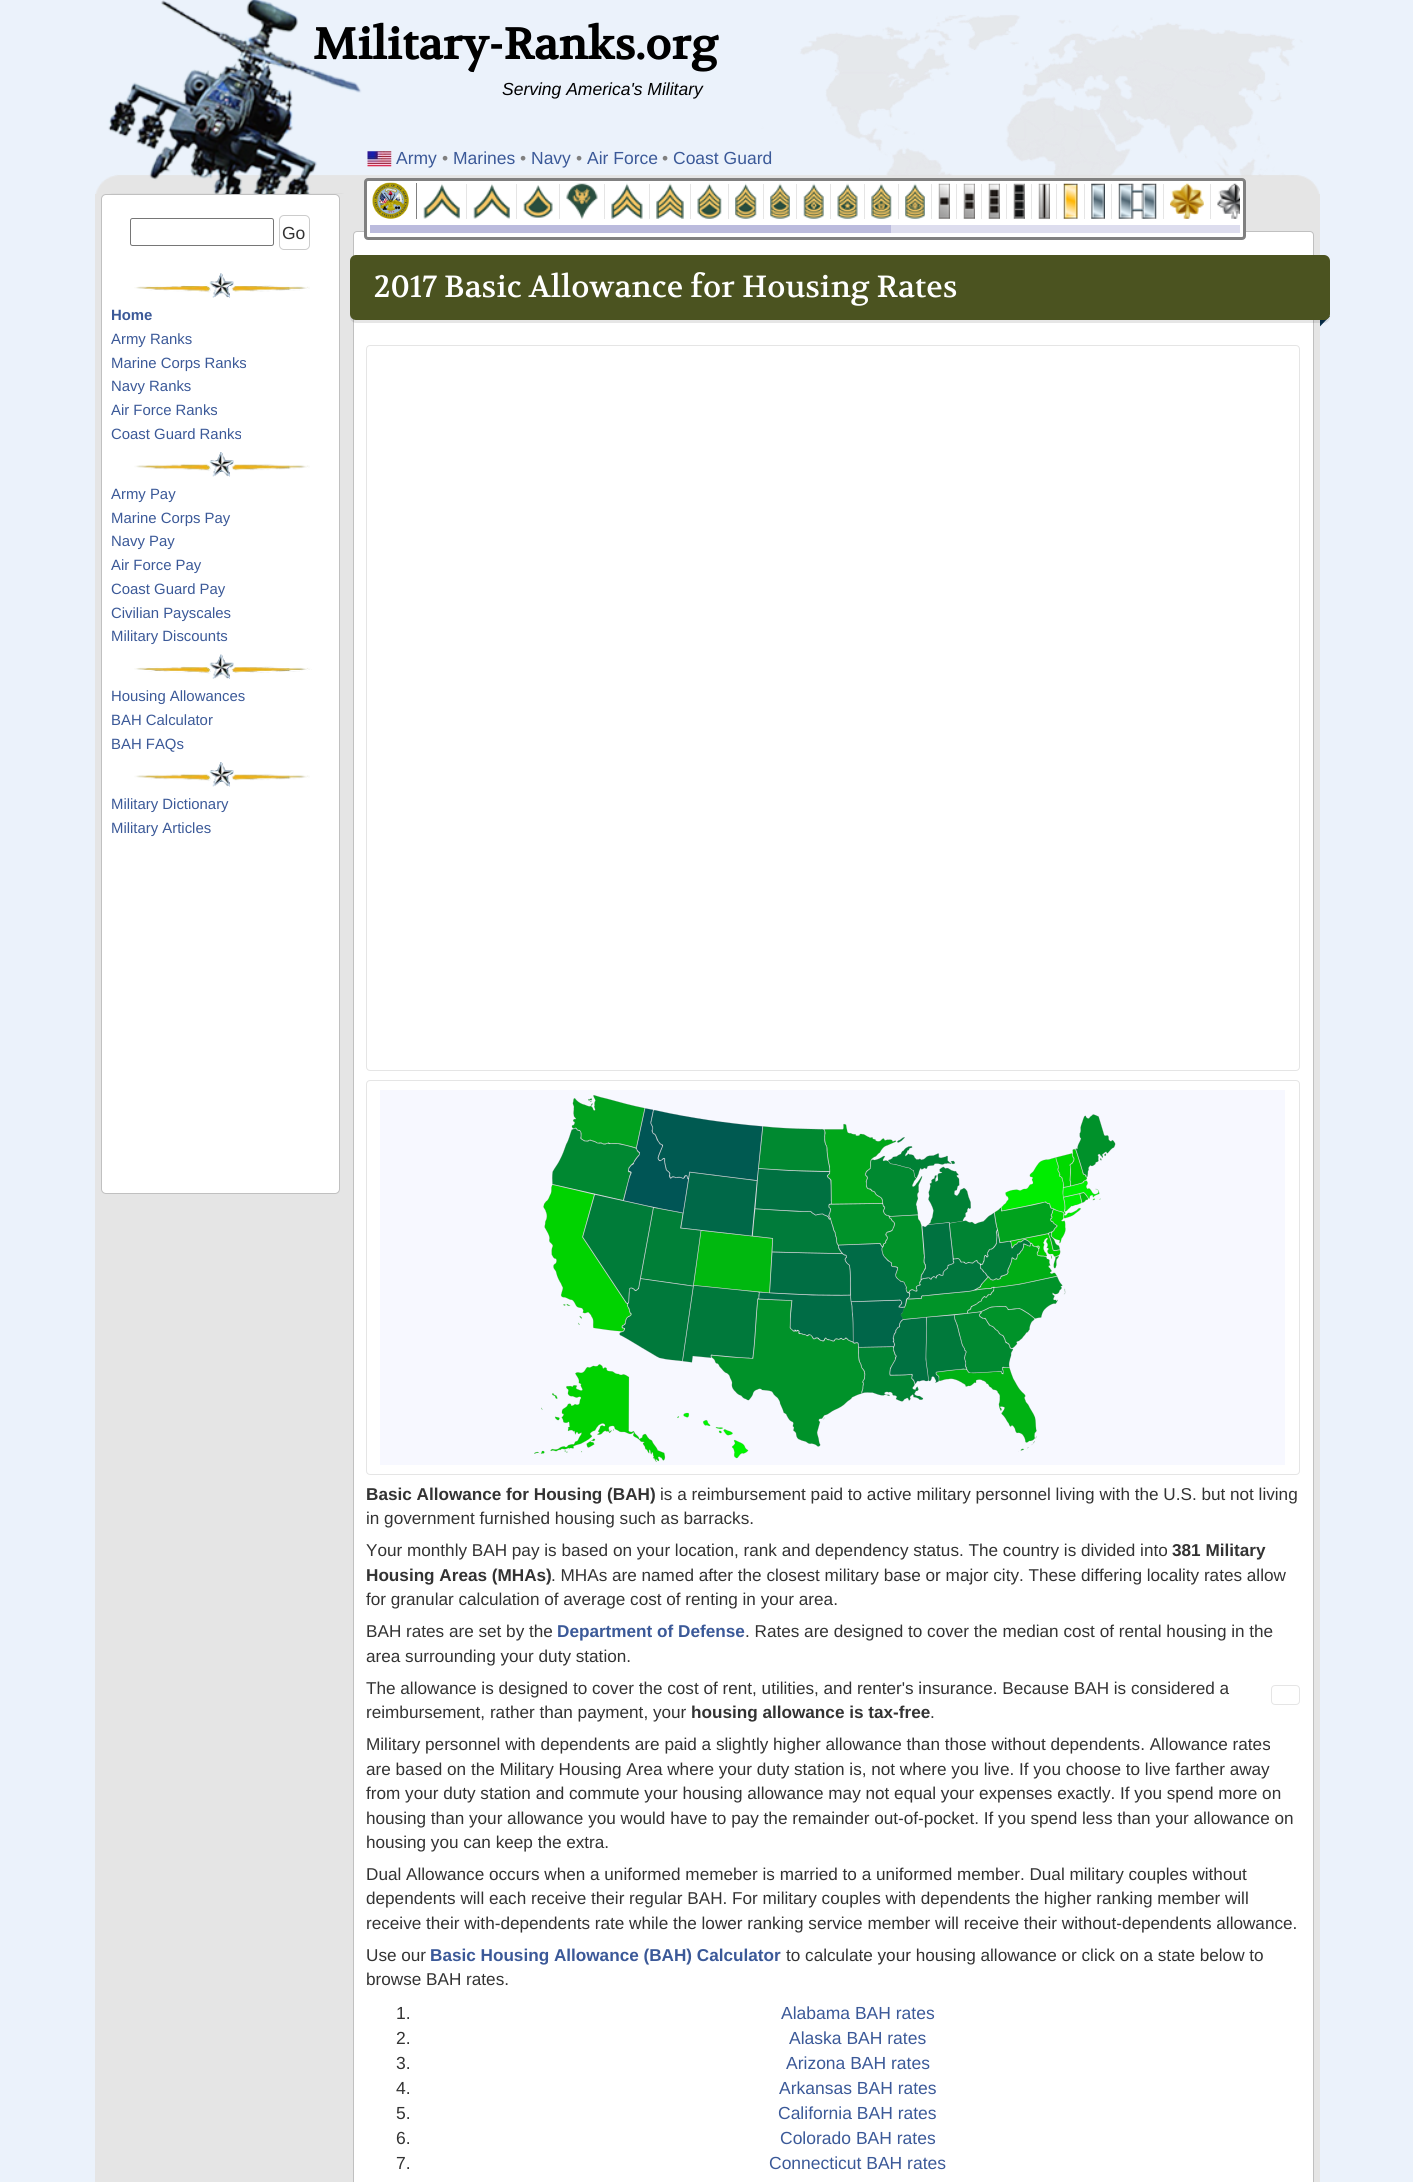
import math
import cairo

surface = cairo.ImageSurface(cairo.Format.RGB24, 1413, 2182)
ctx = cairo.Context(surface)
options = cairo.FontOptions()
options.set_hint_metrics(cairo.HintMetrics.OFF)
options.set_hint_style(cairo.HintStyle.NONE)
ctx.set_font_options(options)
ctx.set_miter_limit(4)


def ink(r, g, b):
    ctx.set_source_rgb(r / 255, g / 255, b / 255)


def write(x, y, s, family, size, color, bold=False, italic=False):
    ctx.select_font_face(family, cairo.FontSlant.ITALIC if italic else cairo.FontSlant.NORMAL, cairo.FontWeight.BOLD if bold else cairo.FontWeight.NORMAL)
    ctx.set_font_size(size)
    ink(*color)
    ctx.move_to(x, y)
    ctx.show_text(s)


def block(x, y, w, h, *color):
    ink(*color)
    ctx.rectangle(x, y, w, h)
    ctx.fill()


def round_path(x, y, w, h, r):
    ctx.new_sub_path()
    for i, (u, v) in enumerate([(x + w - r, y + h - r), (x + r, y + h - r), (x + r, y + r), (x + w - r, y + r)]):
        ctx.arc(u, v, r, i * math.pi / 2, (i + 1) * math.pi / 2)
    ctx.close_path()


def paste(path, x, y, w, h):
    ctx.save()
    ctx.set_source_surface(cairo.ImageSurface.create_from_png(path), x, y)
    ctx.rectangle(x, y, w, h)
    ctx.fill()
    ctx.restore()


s1 = dict(family="Volkhov", size=43.75, color=(0, 0, 0), bold=True)
s2 = dict(family="Liberation Sans", size=17.5, color=(0, 0, 0), italic=True)
s3 = dict(family="Liberation Sans", size=17.5, color=(59, 89, 152))
s4 = dict(family="Liberation Sans", size=17.5, color=(128, 128, 128))
s5 = dict(family="Liberation Sans", size=17.5, color=(51, 51, 51))
s6 = dict(family="Liberation Sans", size=14.9, color=(59, 89, 152), bold=True)
s7 = dict(family="Liberation Sans", size=14.9, color=(59, 89, 152))
s8 = dict(family="Volkhov", size=30.6, color=(255, 255, 255))
s9 = dict(family="Liberation Sans", size=17.15, color=(51, 51, 51), bold=True)
s10 = dict(family="Liberation Sans", size=17.15, color=(51, 51, 51))
s11 = dict(family="Liberation Sans", size=17.15, color=(59, 89, 152), bold=True)

ink(235, 242, 251)
ctx.paint()
paste("pic1.png", 95, 0, 1225, 194)
write(313, 59, "Military-Ranks.org", **s1)
write(502, 95, "Serving America's Military", **s2)
paste("pic2.png", 367, 151, 25, 16)
write(396, 164, "Army", **s3)
write(442, 164, "•", **s4)
write(453, 164, "Marines", **s3)
write(520, 164, "•", **s4)
write(531, 164, "Navy", **s3)
write(576, 164, "•", **s4)
write(587, 164, "Air Force", **s3)
write(662, 164, "•", **s4)
write(673, 164, "Coast Guard", **s3)
ink(9, 47, 75)
ctx.new_path()
ctx.move_to(1305, 316)
ctx.line_to(1330, 316)
ctx.line_to(1317.5, 329)
ctx.close_path()
ctx.fill()
block(95, 194, 1225, 1988, 229, 229, 229)
ink(255, 255, 255)
round_path(353.5, 231.5, 960, 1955, 3.5)
ctx.fill_preserve()
ink(192, 192, 192)
ctx.set_line_width(1)
ctx.stroke()
ink(255, 255, 255)
round_path(365.5, 179.5, 879, 59, 2.5)
ctx.fill_preserve()
ink(128, 128, 128)
ctx.set_line_width(3)
ctx.stroke()
block(416, 183, 1, 36, 128, 128, 128)
paste("pic3.png", 372, 182, 37, 37)
paste("pic4.png", 423, 184, 37, 35)
block(466, 184, 1, 35, 229, 229, 229)
paste("pic4.png", 473, 184, 37, 35)
block(516, 184, 1, 35, 229, 229, 229)
paste("pic5.png", 523, 185, 30, 33)
block(559, 184, 1, 35, 229, 229, 229)
paste("pic6.png", 566, 183, 32, 36)
block(604, 184, 1, 35, 229, 229, 229)
paste("pic7.png", 611, 183, 32, 36)
block(649, 184, 1, 35, 229, 229, 229)
paste("pic8.png", 656, 183, 28, 36)
block(690, 184, 1, 35, 229, 229, 229)
paste("pic9.png", 697, 183, 25, 36)
block(728, 184, 1, 35, 229, 229, 229)
paste("pic10.png", 735, 183, 22, 36)
block(763, 184, 1, 35, 229, 229, 229)
paste("pic11.png", 770, 183, 20, 36)
block(796, 184, 1, 35, 229, 229, 229)
paste("pic12.png", 803, 183, 21, 36)
block(830, 184, 1, 35, 229, 229, 229)
paste("pic13.png", 837, 183, 21, 36)
block(864, 184, 1, 35, 229, 229, 229)
paste("pic14.png", 871, 183, 21, 36)
block(898, 184, 1, 35, 229, 229, 229)
paste("pic15.png", 905, 183, 20, 36)
block(931, 184, 1, 35, 229, 229, 229)
paste("pic16.png", 938, 183, 12, 36)
block(956, 184, 1, 35, 229, 229, 229)
paste("pic17.png", 963, 183, 12, 36)
block(981, 184, 1, 35, 229, 229, 229)
paste("pic18.png", 988, 183, 12, 36)
block(1006, 184, 1, 35, 229, 229, 229)
paste("pic19.png", 1013, 183, 12, 36)
block(1031, 184, 1, 35, 229, 229, 229)
paste("pic20.png", 1038, 183, 12, 36)
block(1056, 184, 1, 35, 229, 229, 229)
paste("pic21.png", 1063, 183, 15, 36)
block(1084, 184, 1, 35, 229, 229, 229)
paste("pic22.png", 1091, 183, 14, 36)
block(1111, 184, 1, 35, 229, 229, 229)
paste("pic23.png", 1118, 183, 39, 36)
block(1163, 184, 1, 35, 229, 229, 229)
paste("pic24.png", 1170, 183, 34, 36)
block(1210, 184, 1, 35, 229, 229, 229)
paste("pic25.png", 1217, 183, 23, 36)
block(891, 225, 349, 8, 221, 221, 238)
block(370, 225, 521, 8, 187, 187, 221)
ink(255, 255, 255)
round_path(101.5, 194.5, 238, 999, 4.5)
ctx.fill_preserve()
ink(192, 192, 192)
ctx.set_line_width(1)
ctx.stroke()
round_path(130.5, 218.5, 143, 27, 2)
ink(118, 118, 118)
ctx.stroke()
round_path(279.5, 215.5, 30, 34, 4.5)
ink(204, 204, 204)
ctx.stroke()
write(282, 239, "Go", **s5)
paste("pic26.png", 134, 273, 176, 25)
write(111, 320, "Home", **s6)
write(111, 344, "Army Ranks", **s7)
write(111, 368, "Marine Corps Ranks", **s7)
write(111, 391, "Navy Ranks", **s7)
write(111, 415, "Air Force Ranks", **s7)
write(111, 439, "Coast Guard Ranks", **s7)
paste("pic27.png", 134, 452, 176, 25)
write(111, 499, "Army Pay", **s7)
write(111, 523, "Marine Corps Pay", **s7)
write(111, 546, "Navy Pay", **s7)
write(111, 570, "Air Force Pay", **s7)
write(111, 594, "Coast Guard Pay", **s7)
write(111, 618, "Civilian Payscales", **s7)
write(111, 641, "Military Discounts", **s7)
paste("pic28.png", 134, 654, 178, 25)
write(111, 701, "Housing Allowances", **s7)
write(111, 725, "BAH Calculator", **s7)
write(111, 749, "BAH FAQs", **s7)
paste("pic27.png", 134, 762, 176, 25)
write(111, 809, "Military Dictionary", **s7)
write(111, 833, "Military Articles", **s7)
ctx.set_source_rgba(0, 0, 0, 0.1)
ctx.new_path()
ctx.move_to(350, 314)
ctx.line_to(350, 317)
ctx.curve_to(350, 320, 353, 323, 356, 323)
ctx.line_to(1324, 323)
ctx.curve_to(1327, 323, 1330, 320, 1330, 317)
ctx.line_to(1330, 314)
ctx.curve_to(1330, 317, 1327, 320, 1324, 320)
ctx.line_to(356, 320)
ctx.curve_to(353, 320, 350, 317, 350, 314)
ctx.close_path()
ctx.fill()
ink(75, 83, 32)
round_path(350, 255, 980, 65, 6)
ctx.fill()
write(374, 297, "2017 Basic Allowance for Housing Rates", **s8)
round_path(366.5, 345.5, 933, 725, 3.5)
ink(229, 229, 229)
ctx.stroke()
round_path(366.5, 1080.5, 933, 394, 3.5)
ctx.stroke()
block(380, 1090, 905, 375, 247, 248, 255)
paste("pic29.png", 534, 1095, 582, 367)
write(366, 1500, "Basic Allowance for Housing (BAH)", **s9)
write(660, 1500, "is a reimbursement paid to active military personnel living with the U.S. but not living", **s10)
write(366, 1524, "in government furnished housing such as barracks.", **s10)
write(366, 1556, "Your monthly BAH pay is based on your location, rank and dependency status. The country is divided into", **s10)
write(1172, 1556, "381 Military", **s9)
write(366, 1581, "Housing Areas (MHAs)", **s9)
write(551, 1581, ". MHAs are named after the closest military base or major city. These differing locality rates allow", **s10)
write(366, 1605, "for granular calculation of average cost of renting in your area.", **s10)
write(366, 1637, "BAH rates are set by the", **s10)
write(557, 1637, "Department of Defense", **s11)
write(745, 1637, ". Rates are designed to cover the median cost of rental housing in the", **s10)
write(366, 1662, "area surrounding your duty station.", **s10)
write(366, 1694, "The allowance is designed to cover the cost of rent, utilities, and renter's insurance. Because BAH is considered a", **s10)
write(366, 1718, "reimbursement, rather than payment, your", **s10)
write(691, 1718, "housing allowance is tax-free", **s9)
write(930, 1718, ".", **s10)
write(366, 1750, "Military personnel with dependents are paid a slightly higher allowance than those without dependents. Allowance rates", **s10)
write(366, 1775, "are based on the Military Housing Area where your duty station is, not where you live. If you choose to live farther away", **s10)
write(366, 1799, "from your duty station and commute your housing allowance may not equal your expenses exactly. If you spend more on", **s10)
write(366, 1824, "housing than your allowance you would have to pay the remainder out-of-pocket. If you spend less than your allowance on", **s10)
write(366, 1848, "housing you can keep the extra.", **s10)
write(366, 1880, "Dual Allowance occurs when a uniformed memeber is married to a uniformed member. Dual military couples without", **s10)
write(366, 1904, "dependents will each receive their regular BAH. For military couples with dependents the higher ranking member will", **s10)
write(366, 1929, "receive their with-dependents rate while the lower ranking service member will receive their without-dependents allowance.", **s10)
write(366, 1961, "Use our", **s10)
write(430, 1961, "Basic Housing Allowance (BAH) Calculator", **s11)
write(786, 1961, "to calculate your housing allowance or click on a state below to", **s10)
write(366, 1985, "browse BAH rates.", **s10)
write(396, 2019, "1.", **s5)
write(781, 2019, "Alabama BAH rates", **s3)
write(396, 2044, "2.", **s5)
write(789, 2044, "Alaska BAH rates", **s3)
write(396, 2069, "3.", **s5)
write(786, 2069, "Arizona BAH rates", **s3)
write(396, 2094, "4.", **s5)
write(779, 2094, "Arkansas BAH rates", **s3)
write(396, 2119, "5.", **s5)
write(778, 2119, "California BAH rates", **s3)
write(396, 2144, "6.", **s5)
write(780, 2144, "Colorado BAH rates", **s3)
write(396, 2169, "7.", **s5)
write(769, 2169, "Connecticut BAH rates", **s3)
round_path(1271.5, 1685.5, 28, 19, 3.5)
ink(229, 229, 229)
ctx.stroke()
surface.write_to_png("screenshot.png")
